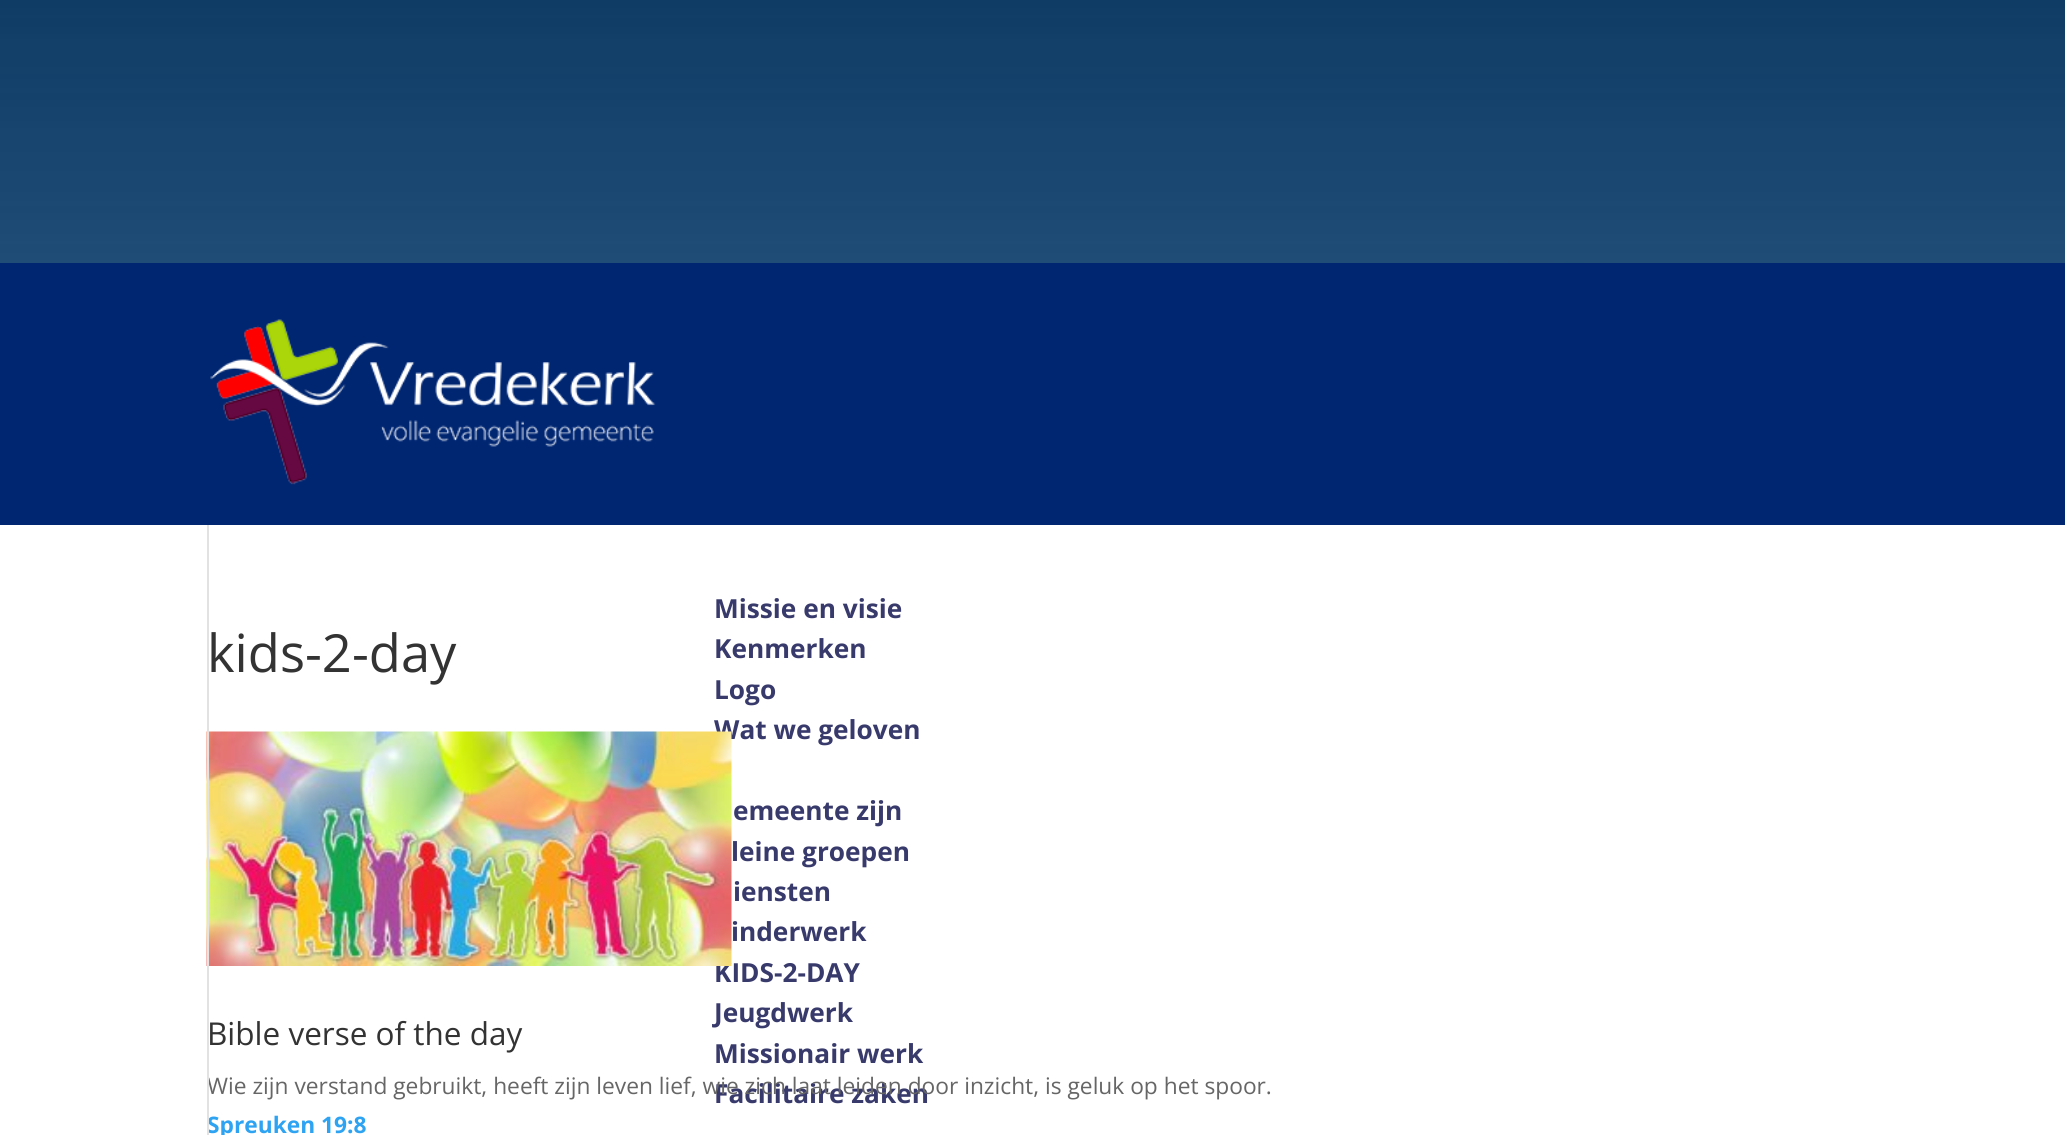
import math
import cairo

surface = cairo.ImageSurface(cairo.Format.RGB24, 2065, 1135)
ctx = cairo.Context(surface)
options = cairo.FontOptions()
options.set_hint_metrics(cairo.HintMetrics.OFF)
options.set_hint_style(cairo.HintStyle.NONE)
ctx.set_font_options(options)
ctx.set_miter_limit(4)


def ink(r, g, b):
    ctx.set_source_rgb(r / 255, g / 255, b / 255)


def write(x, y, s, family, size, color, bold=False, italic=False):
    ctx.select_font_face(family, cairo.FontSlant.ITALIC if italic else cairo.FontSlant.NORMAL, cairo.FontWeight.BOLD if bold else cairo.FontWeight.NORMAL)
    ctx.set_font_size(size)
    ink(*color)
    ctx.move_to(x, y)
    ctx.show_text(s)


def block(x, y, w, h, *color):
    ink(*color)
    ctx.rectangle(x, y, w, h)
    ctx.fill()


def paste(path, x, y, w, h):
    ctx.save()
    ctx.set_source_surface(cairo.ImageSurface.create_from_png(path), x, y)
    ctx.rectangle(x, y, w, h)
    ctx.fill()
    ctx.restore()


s1 = dict(family="Open Sans", size=26.25, color=(56, 58, 108), bold=True)
s2 = dict(family="Open Sans", size=22.75, color=(102, 102, 102))
s3 = dict(family="Open Sans", size=22.75, color=(46, 163, 242), bold=True)
s4 = dict(family="Open Sans", size=52.5, color=(51, 51, 51))
s5 = dict(family="Open Sans", size=31.5, color=(51, 51, 51))

ink(255, 255, 255)
ctx.paint()
paste("pic1.png", 0, 0, 2065, 263)
block(0, 263, 2065, 262, 0, 38, 114)
paste("pic2.png", 210, 319, 446, 166)
write(714, 618, "Missie en visie", **s1)
write(714, 658, "Kenmerken", **s1)
write(714, 699, "Logo", **s1)
write(714, 739, "Wat we geloven", **s1)
write(733, 820, "emeente zijn", **s1)
write(731, 861, "leine groepen", **s1)
write(733, 901, "iensten", **s1)
write(731, 941, "inderwerk", **s1)
write(714, 982, "KIDS-2-DAY", **s1)
write(714, 1022, "Jeugdwerk", **s1)
write(714, 1063, "Missionair werk", **s1)
write(714, 1103, "Facilitaire zaken", **s1)
paste("pic3.png", 206, 731, 526, 235)
write(207, 1094, "Wie zijn verstand gebruikt, heeft zijn leven lief, wie zich laat leiden door inzicht, is geluk op het spoor.", **s2)
write(207, 1133, "Spreuken 19:8", **s3)
block(207, 525, 2, 610, 226, 226, 226)
write(207, 672, "kids-2-day", **s4)
write(207, 1045, "Bible verse of the day", **s5)
surface.write_to_png("screenshot.png")
